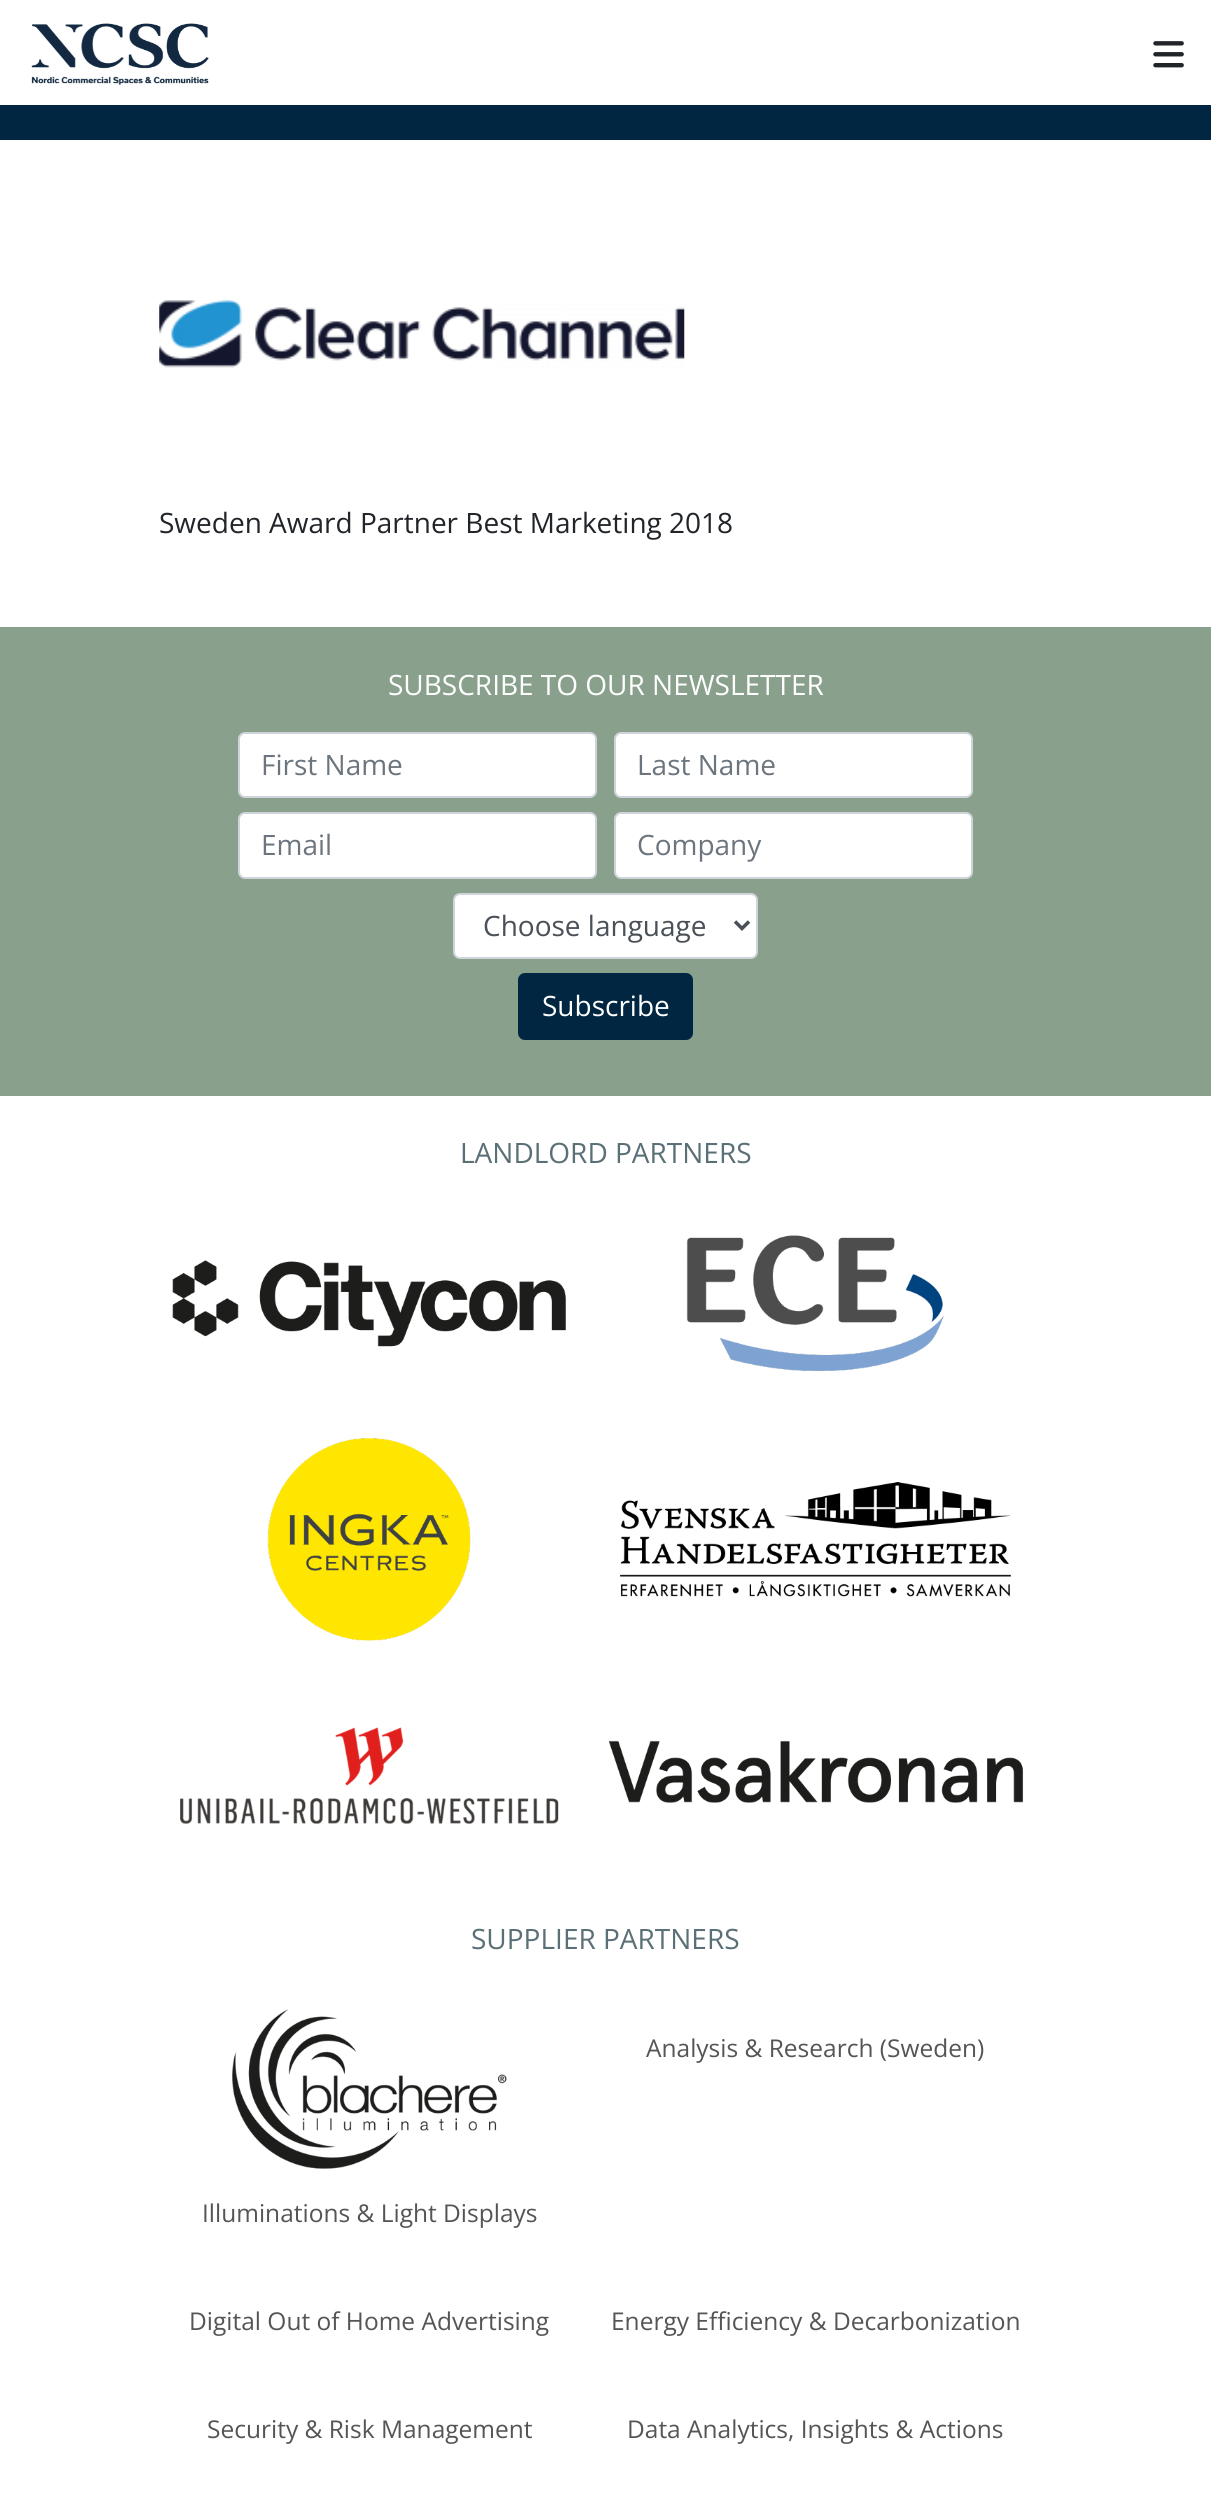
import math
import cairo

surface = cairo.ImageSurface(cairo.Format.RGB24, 1211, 2503)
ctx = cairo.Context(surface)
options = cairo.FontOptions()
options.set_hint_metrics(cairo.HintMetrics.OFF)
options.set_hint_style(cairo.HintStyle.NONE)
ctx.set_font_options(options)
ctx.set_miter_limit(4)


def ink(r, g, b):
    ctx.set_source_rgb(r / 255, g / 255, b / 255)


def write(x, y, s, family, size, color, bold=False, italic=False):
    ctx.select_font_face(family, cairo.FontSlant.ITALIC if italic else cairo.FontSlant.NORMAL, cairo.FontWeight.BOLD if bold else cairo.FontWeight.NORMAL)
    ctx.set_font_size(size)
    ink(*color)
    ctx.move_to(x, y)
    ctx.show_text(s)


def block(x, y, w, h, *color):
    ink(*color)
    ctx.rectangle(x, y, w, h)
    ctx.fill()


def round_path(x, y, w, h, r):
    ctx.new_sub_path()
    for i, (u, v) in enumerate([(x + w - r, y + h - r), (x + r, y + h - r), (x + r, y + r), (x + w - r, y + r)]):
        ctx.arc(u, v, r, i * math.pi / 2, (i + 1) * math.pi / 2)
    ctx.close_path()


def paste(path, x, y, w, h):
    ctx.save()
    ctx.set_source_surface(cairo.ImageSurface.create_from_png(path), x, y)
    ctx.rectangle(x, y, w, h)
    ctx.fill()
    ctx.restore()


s1 = dict(family="Open Sans", size=28, color=(33, 37, 41))
s2 = dict(family="Open Sans", size=28, color=(255, 255, 255))
s3 = dict(family="Open Sans", size=28, color=(108, 117, 125))
s4 = dict(family="Open Sans", size=28, color=(73, 80, 87))
s5 = dict(family="Open Sans", size=28, color=(91, 111, 118))
s6 = dict(family="Open Sans", size=24.5, color=(85, 85, 85))

ink(255, 255, 255)
ctx.paint()
paste("pic1.png", 31, 23, 178, 62)
paste("pic2.png", 1153, 41, 31, 27)
block(0, 105, 1211, 35, 0, 38, 65)
paste("pic3.png", 159, 300, 526, 68)
write(159, 533, "Sweden Award Partner Best Marketing 2018", **s1)
block(0, 627, 1211, 469, 137, 160, 140)
write(388, 695, "SUBSCRIBE TO OUR NEWSLETTER", **s2)
round_path(239, 733, 357, 64, 6)
ctx.fill_preserve()
ink(206, 212, 218)
ctx.stroke()
write(261, 775, "First Name", **s3)
ink(255, 255, 255)
round_path(615, 733, 357, 64, 6)
ctx.fill_preserve()
ink(206, 212, 218)
ctx.stroke()
write(637, 775, "Last Name", **s3)
ink(255, 255, 255)
round_path(239, 813, 357, 65, 6)
ctx.fill_preserve()
ink(206, 212, 218)
ctx.stroke()
write(261, 855, "Email", **s3)
ink(255, 255, 255)
round_path(615, 813, 357, 65, 6)
ctx.fill_preserve()
ink(206, 212, 218)
ctx.stroke()
write(637, 855, "Company", **s3)
ink(255, 255, 255)
round_path(454, 894, 303, 64, 6)
ctx.fill_preserve()
ink(206, 212, 218)
ctx.stroke()
ctx.new_path()
ctx.move_to(735, 921.5)
ctx.line_to(742, 928.5)
ctx.line_to(749, 921.5)
ink(73, 80, 87)
ctx.set_line_width(3.5)
ctx.stroke()
write(483, 936, "Choose language", **s4)
ink(0, 38, 65)
round_path(519, 974, 173, 65, 6)
ctx.fill_preserve()
ctx.set_line_width(2)
ctx.stroke()
write(542, 1016, "Subscribe", **s2)
write(460, 1163, "LANDLORD PARTNERS", **s5)
paste("pic4.png", 172, 1260, 394, 87)
paste("pic5.png", 686, 1235, 258, 136)
paste("pic6.png", 267, 1438, 204, 203)
paste("pic7.png", 620, 1482, 391, 115)
paste("pic8.png", 180, 1727, 379, 97)
paste("pic9.png", 609, 1740, 415, 63)
write(471, 1949, "SUPPLIER PARTNERS", **s5)
write(646, 2057, "Analysis & Research (Sweden)", **s6)
paste("pic10.png", 232, 2009, 275, 160)
write(202, 2222, "Illuminations & Light Displays", **s6)
write(189, 2330, "Digital Out of Home Advertising", **s6)
write(611, 2330, "Energy Efficiency & Decarbonization", **s6)
write(207, 2438, "Security & Risk Management", **s6)
write(627, 2438, "Data Analytics, Insights & Actions", **s6)
surface.write_to_png("screenshot.png")
